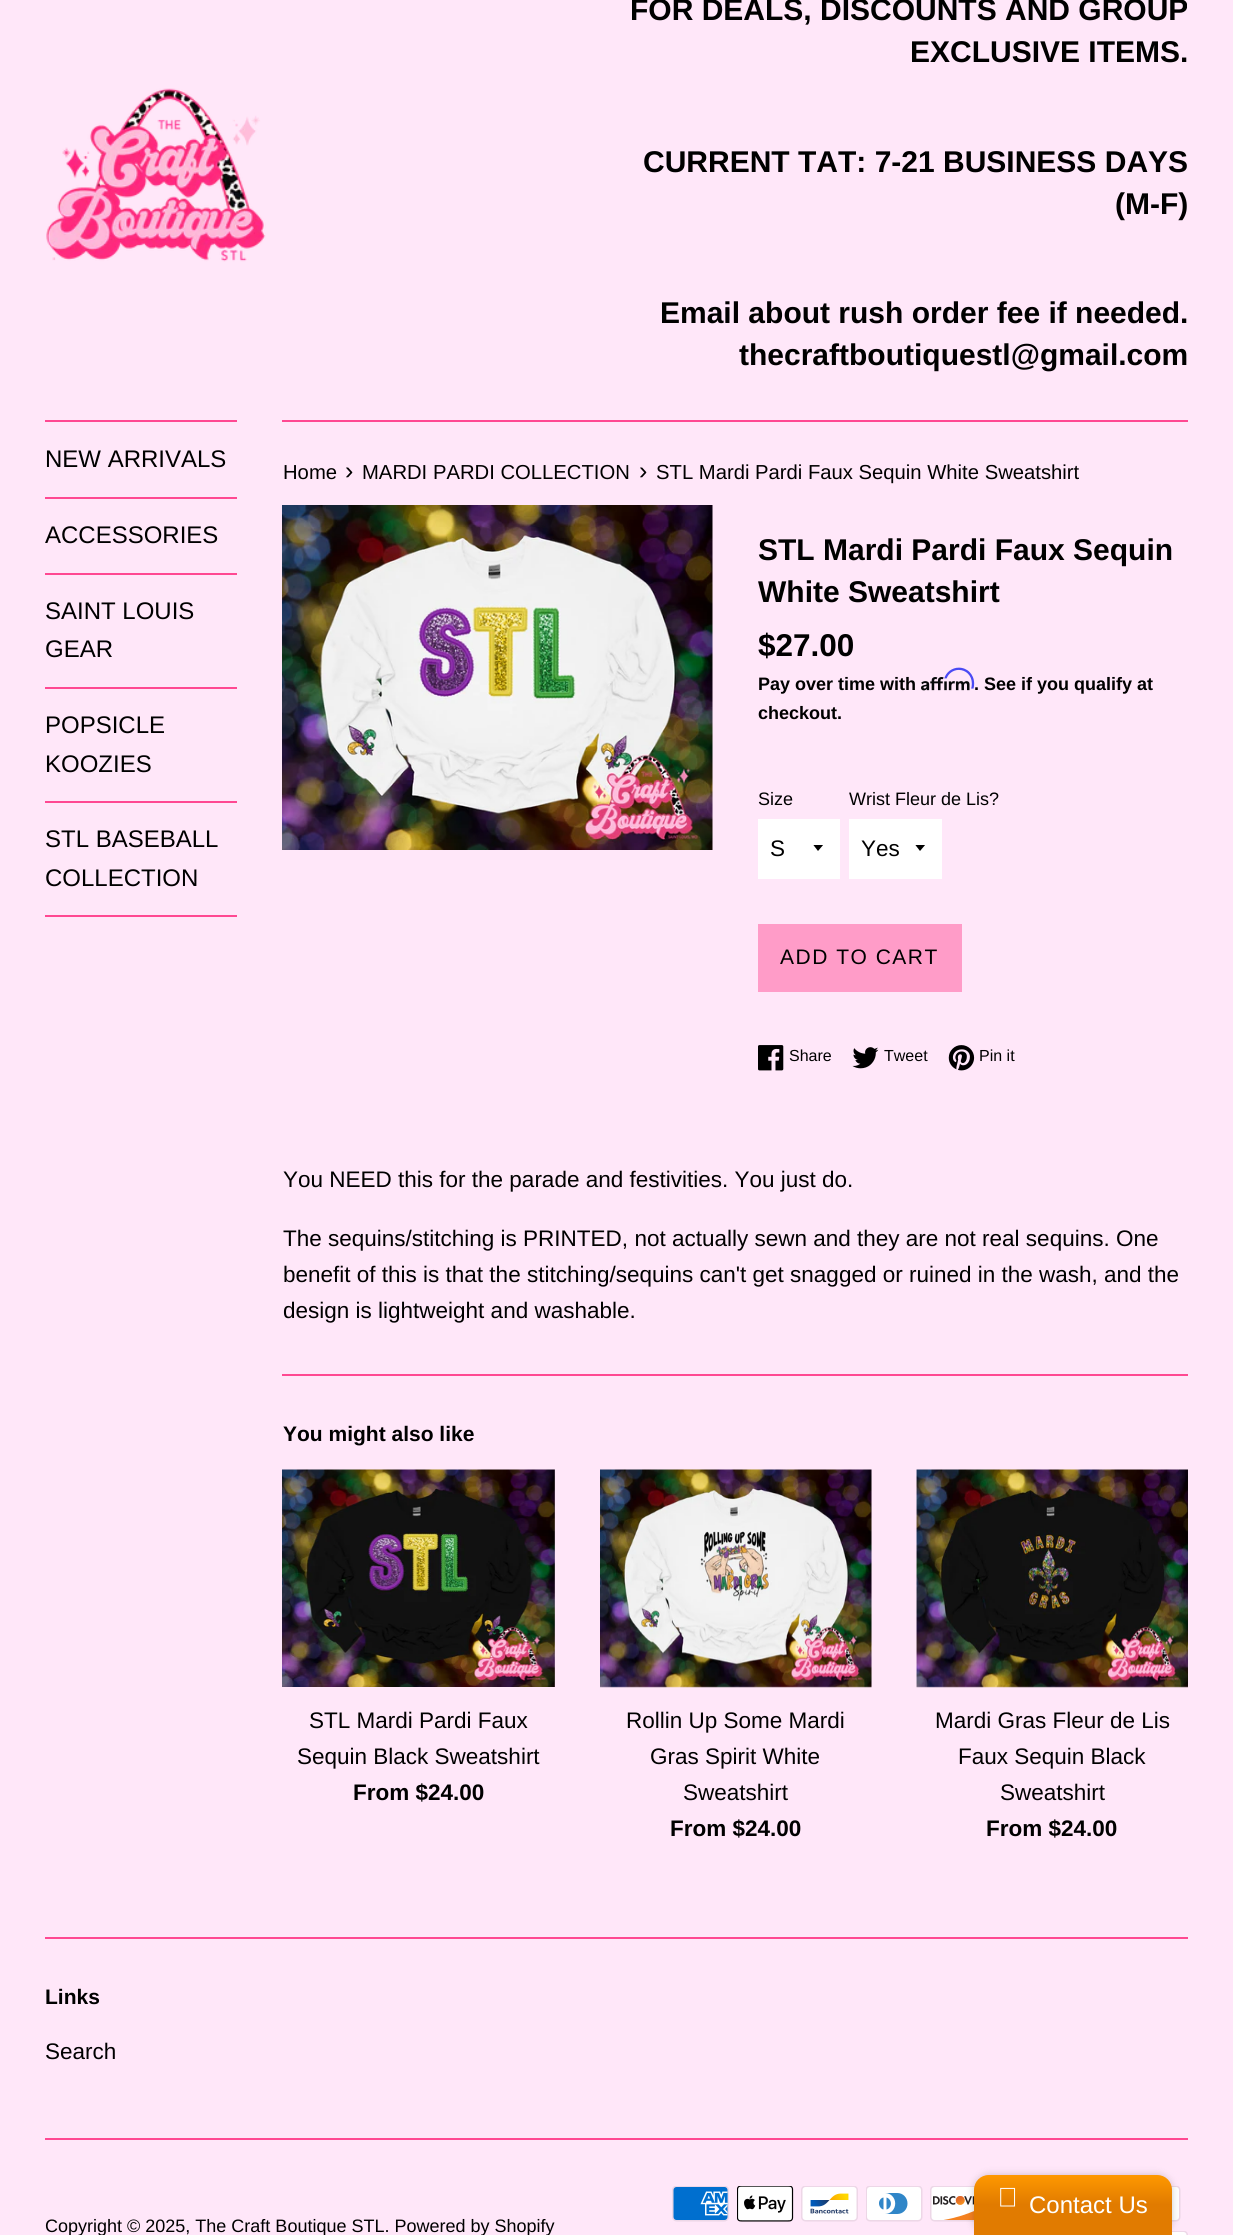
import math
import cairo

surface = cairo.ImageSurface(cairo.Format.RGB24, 1233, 2235)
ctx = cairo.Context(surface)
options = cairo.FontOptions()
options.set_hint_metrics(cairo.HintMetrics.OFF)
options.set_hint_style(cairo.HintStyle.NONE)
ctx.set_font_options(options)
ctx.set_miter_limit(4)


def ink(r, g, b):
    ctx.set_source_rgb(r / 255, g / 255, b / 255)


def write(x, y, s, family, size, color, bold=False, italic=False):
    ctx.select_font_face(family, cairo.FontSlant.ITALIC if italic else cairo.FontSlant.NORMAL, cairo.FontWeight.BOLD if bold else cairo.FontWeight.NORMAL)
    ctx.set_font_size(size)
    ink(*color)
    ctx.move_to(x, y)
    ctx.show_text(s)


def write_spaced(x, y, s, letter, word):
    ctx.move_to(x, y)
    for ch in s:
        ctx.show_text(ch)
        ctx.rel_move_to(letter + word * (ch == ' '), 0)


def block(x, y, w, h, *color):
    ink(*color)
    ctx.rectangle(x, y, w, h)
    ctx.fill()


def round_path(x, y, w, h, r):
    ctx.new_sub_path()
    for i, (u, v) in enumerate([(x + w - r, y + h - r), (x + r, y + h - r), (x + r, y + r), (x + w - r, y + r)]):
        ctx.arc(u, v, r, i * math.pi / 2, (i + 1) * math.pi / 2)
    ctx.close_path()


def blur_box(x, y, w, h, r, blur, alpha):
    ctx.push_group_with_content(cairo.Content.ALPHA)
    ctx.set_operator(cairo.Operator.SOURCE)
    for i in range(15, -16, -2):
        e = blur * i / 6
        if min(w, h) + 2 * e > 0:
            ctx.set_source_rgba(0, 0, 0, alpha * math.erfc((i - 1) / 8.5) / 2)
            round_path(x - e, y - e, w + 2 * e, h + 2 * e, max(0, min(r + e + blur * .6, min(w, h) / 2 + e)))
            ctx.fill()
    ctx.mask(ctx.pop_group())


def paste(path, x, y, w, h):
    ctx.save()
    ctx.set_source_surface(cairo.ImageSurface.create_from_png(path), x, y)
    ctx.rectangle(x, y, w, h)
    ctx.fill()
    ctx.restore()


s1 = dict(family="Liberation Sans", size=30, color=(0, 0, 0), bold=True)
s2 = dict(family="Liberation Sans", size=24, color=(0, 0, 0))
s3 = dict(family="Liberation Sans", size=20.25, color=(0, 0, 0))
s4 = dict(family="Liberation Sans", size=25, color=(0, 0, 0))
s5 = dict(family="Liberation Sans", size=31.5, color=(0, 0, 0), bold=True)
s6 = dict(family="Liberation Sans", size=18, color=(0, 0, 0), bold=True)
s7 = dict(family="Liberation Sans", size=18, color=(0, 0, 0))
s8 = dict(family="Liberation Sans", size=22.5, color=(0, 0, 0))
s9 = dict(family="Liberation Sans", size=16, color=(0, 0, 0))
s10 = dict(family="Liberation Sans", size=21, color=(0, 0, 0), bold=True)
s11 = dict(family="Liberation Sans", size=22.5, color=(0, 0, 0), bold=True)
s12 = dict(family="Liberation Sans", size=24, color=(255, 255, 255))

ink(255, 231, 249)
ctx.paint()
paste("pic1.png", 46, 88, 220, 174)
write(630, 20, "FOR DEALS, DISCOUNTS AND GROUP", **s1)
write(910, 62, "EXCLUSIVE ITEMS.", **s1)
write(643, 172, "CURRENT TAT: 7-21 BUSINESS DAYS", **s1)
write(1115, 214, "(M-F)", **s1)
write(660, 323, "Email about rush order fee if needed", **s1)
write(1180, 323, ".", **s1)
write(739, 365, "thecraftboutiquestl@gmail.com", **s1)
block(45, 420, 192, 2, 255, 72, 146)
block(45, 497, 192, 2, 255, 72, 146)
write(45, 467, "NEW ARRIVALS", **s2)
block(45, 573, 192, 2, 255, 72, 146)
write(45, 543, "ACCESSORIES", **s2)
block(45, 687, 192, 2, 255, 72, 146)
write(45, 619, "SAINT LOUIS", **s2)
write(45, 657, "GEAR", **s2)
block(45, 801, 192, 2, 255, 72, 146)
write(45, 733, "POPSICLE", **s2)
write(45, 772, "KOOZIES", **s2)
block(45, 915, 192, 2, 255, 72, 146)
write(45, 847, "STL BASEBALL", **s2)
write(45, 886, "COLLECTION", **s2)
block(282, 420, 906, 2, 255, 72, 146)
write(283, 479, "Home", **s3)
write(345, 479, "›", **s4)
write(362, 479, "MARDI PARDI COLLECTION", **s3)
write(639, 479, "›", **s4)
write(656, 479, "STL Mardi Pardi Faux Sequin White Sweatshirt", **s3)
paste("pic2.png", 282, 505, 431, 345)
write(758, 560, "STL Mardi Pardi Faux Sequin", **s1)
write(758, 602, "White Sweatshirt", **s1)
write(758, 656, "$27.00", **s5)
write(758, 690, "Pay over time with", **s6)
paste("pic4.png", 921, 677, 49, 14)
paste("pic3.png", 944, 667, 31, 22)
write(974, 690, ". See if you qualify at", **s6)
write(758, 719, "checkout.", **s6)
write(758, 805, "Size", **s7)
block(758, 819, 82, 60, 255, 255, 255)
ctx.save()
ctx.rectangle(813, 845, 12, 7)
ctx.clip()
ink(0, 0, 0)
ctx.new_path()
ctx.move_to(813, 844.5)
ctx.line_to(818, 851)
ctx.line_to(823.5, 844.5)
ctx.close_path()
ctx.fill()
ctx.restore()
write(770, 856, "S", **s8)
write(849, 805, "Wrist Fleur de Lis?", **s7)
block(849, 819, 93, 60, 255, 255, 255)
ctx.save()
ctx.rectangle(915, 845, 12, 7)
ctx.clip()
ink(0, 0, 0)
ctx.new_path()
ctx.move_to(915, 844.5)
ctx.line_to(920, 851)
ctx.line_to(925.5, 844.5)
ctx.close_path()
ctx.fill()
ctx.restore()
write(861, 856, "Yes", **s8)
block(758, 924, 204, 68, 255, 156, 200)
ctx.set_font_size(21)
ink(0, 0, 0)
write_spaced(780, 964, "ADD TO CART", 1.5, 0)
paste("pic5.png", 758, 1045, 26, 26)
write(789, 1061, "Share", **s9)
paste("pic6.png", 852, 1047, 27, 22)
write(884, 1061, "Tweet", **s9)
paste("pic7.png", 948, 1045, 27, 26)
write(979, 1061, "Pin it", **s9)
write(283, 1187, "You NEED this for the parade and festivities. You just do.", **s8)
write(283, 1246, "The sequins/stitching is PRINTED, not actually sewn and they are not real sequins. One", **s8)
write(283, 1282, "benefit of this is that the stitching/sequins can't get snagged or ruined in the wash, and the", **s8)
write(283, 1318, "design is lightweight and washable.", **s8)
block(282, 1374, 906, 2, 255, 72, 146)
write(283, 1441, "You might also like", **s10)
paste("pic8.png", 282, 1469, 273, 218)
write(309, 1728, "STL Mardi Pardi Faux", **s8)
write(297, 1764, "Sequin Black Sweatshirt", **s8)
write(353, 1800, "From $24.00", **s11)
paste("pic9.png", 600, 1469, 272, 219)
write(626, 1728, "Rollin Up Some Mardi", **s8)
write(650, 1764, "Gras Spirit White", **s8)
write(683, 1800, "Sweatshirt", **s8)
write(670, 1836, "From $24.00", **s11)
paste("pic10.png", 916, 1469, 272, 219)
write(935, 1728, "Mardi Gras Fleur de Lis", **s8)
write(958, 1764, "Faux Sequin Black", **s8)
write(1000, 1800, "Sweatshirt", **s8)
write(986, 1836, "From $24.00", **s11)
block(45, 1937, 1143, 2, 255, 72, 146)
write(45, 2004, "Links", **s10)
write(45, 2059, "Search", **s8)
block(45, 2138, 1143, 2, 255, 72, 146)
write(45, 2232, "Copyright © 2025, The Craft Boutique STL. Powered by Shopify", **s7)
paste("pic11.png", 672, 2186, 57, 36)
paste("pic12.png", 737, 2186, 57, 36)
paste("pic13.png", 801, 2186, 57, 36)
paste("pic14.png", 866, 2186, 57, 36)
paste("pic15.png", 930, 2186, 45, 36)
paste("pic16.png", 1171, 2186, 10, 36)
paste("pic17.png", 1172, 2231, 16, 4)
ink(0, 0, 0)
blur_box(974, 2175, 198, 60, 15, 4, 0.2)
gradient = cairo.LinearGradient(1073, 2175, 1073, 2235)
gradient.add_color_stop_rgba(0, 1, 0.6, 0, 1)
gradient.add_color_stop_rgba(0.5, 0.882, 0.482, 0, 1)
ctx.set_source(gradient)
ctx.new_path()
ctx.move_to(989, 2175)
ctx.line_to(1157, 2175)
ctx.curve_to(1165.5, 2175, 1172, 2181.5, 1172, 2190)
ctx.line_to(1172, 2235)
ctx.line_to(974, 2235)
ctx.line_to(974, 2190)
ctx.curve_to(974, 2181.5, 980.5, 2175, 989, 2175)
ctx.close_path()
ctx.fill()
paste("pic18.png", 1000, 2187, 16, 20)
write(1029, 2213, "Contact Us", **s12)
surface.write_to_png("screenshot.png")
